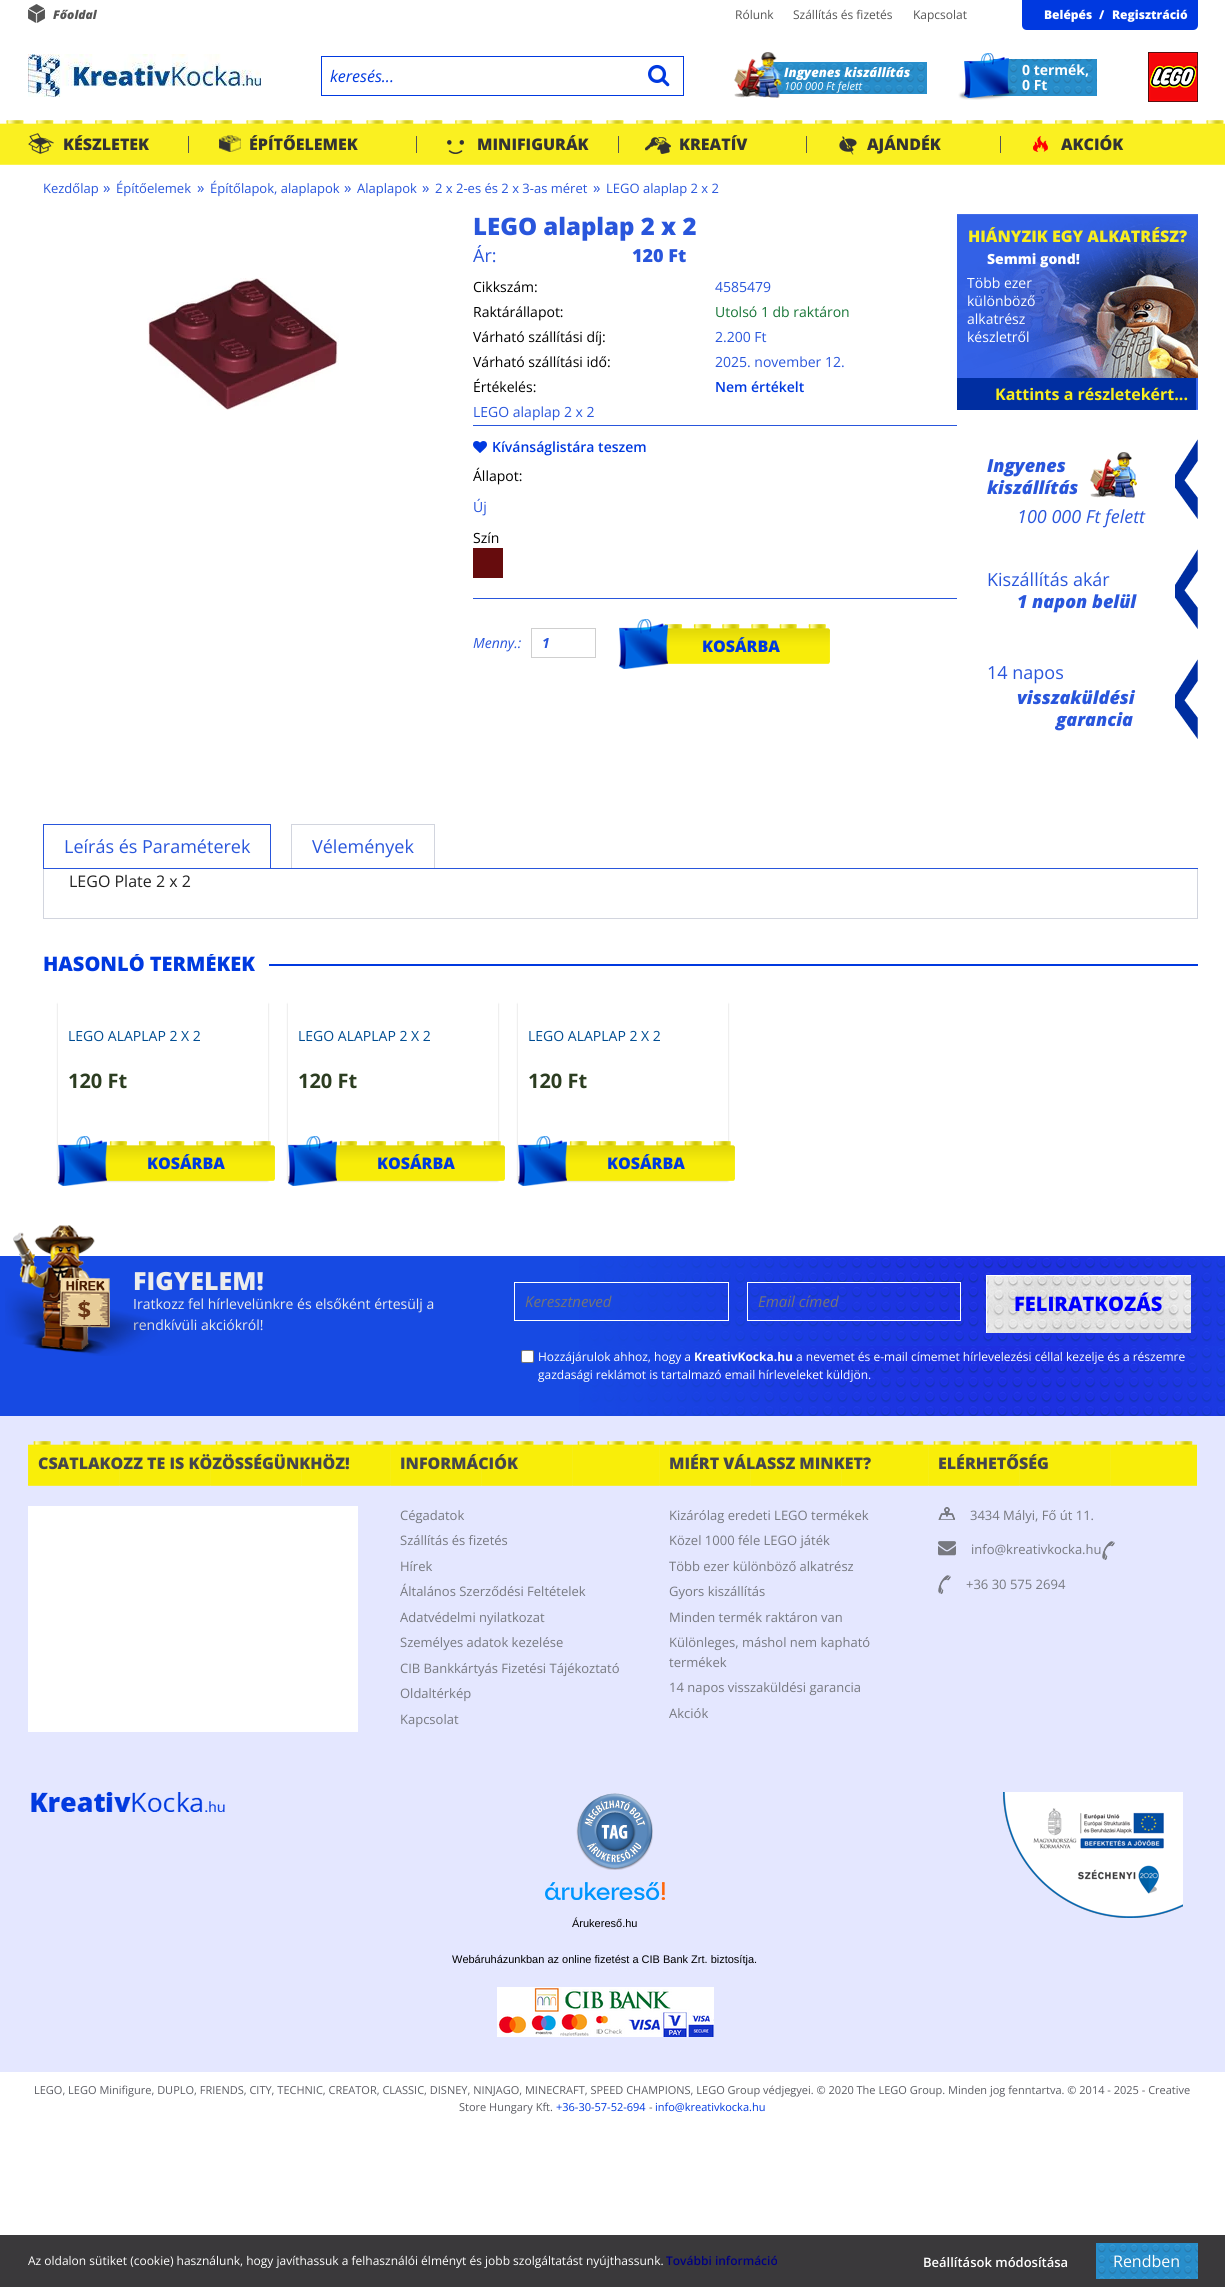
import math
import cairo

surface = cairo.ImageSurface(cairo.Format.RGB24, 1225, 2287)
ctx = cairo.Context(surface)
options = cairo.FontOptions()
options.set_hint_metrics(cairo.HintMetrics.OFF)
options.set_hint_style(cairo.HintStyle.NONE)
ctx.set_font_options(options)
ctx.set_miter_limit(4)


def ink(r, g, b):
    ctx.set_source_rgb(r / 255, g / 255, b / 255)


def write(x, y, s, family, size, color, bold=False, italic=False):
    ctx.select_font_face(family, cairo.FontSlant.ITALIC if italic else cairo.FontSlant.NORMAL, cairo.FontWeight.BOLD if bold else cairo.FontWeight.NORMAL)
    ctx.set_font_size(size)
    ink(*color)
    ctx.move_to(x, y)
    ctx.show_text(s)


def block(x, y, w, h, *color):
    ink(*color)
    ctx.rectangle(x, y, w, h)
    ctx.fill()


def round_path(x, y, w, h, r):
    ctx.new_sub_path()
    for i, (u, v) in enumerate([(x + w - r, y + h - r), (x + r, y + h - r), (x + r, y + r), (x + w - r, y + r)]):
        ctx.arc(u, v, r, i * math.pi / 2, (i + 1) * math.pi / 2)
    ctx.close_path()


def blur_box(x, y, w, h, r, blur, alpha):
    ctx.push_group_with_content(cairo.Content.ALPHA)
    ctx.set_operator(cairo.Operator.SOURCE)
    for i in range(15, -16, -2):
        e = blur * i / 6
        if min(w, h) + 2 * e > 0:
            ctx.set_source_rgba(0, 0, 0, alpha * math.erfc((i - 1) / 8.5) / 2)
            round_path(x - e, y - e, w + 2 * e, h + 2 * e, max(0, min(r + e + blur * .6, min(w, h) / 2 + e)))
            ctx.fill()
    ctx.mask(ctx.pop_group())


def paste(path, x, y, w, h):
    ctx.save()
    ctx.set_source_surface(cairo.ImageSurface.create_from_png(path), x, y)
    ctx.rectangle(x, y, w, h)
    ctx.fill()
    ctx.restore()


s1 = dict(family="Open Sans ExtraBold", size=12, color=(85, 85, 85), italic=True)
s2 = dict(family="Open Sans", size=12, color=(85, 85, 85))
s3 = dict(family="Open Sans ExtraBold", size=12, color=(255, 255, 255))
s4 = dict(family="Open Sans", size=16, color=(0, 57, 224), italic=True)
s5 = dict(family="Open Sans ExtraBold", size=13, color=(255, 255, 255), italic=True)
s6 = dict(family="Open Sans", size=11, color=(255, 255, 255), italic=True)
s7 = dict(family="Open Sans", size=14, color=(255, 255, 255), bold=True)
s8 = dict(family="Open Sans ExtraBold", size=16, color=(51, 51, 51))
s9 = dict(family="Open Sans", size=13, color=(41, 86, 220))
s10 = dict(family="Open Sans", size=15, color=(41, 86, 220))
s11 = dict(family="Open Sans ExtraBold", size=24, color=(41, 86, 220))
s12 = dict(family="Open Sans", size=18, color=(41, 86, 220))
s13 = dict(family="Open Sans ExtraBold", size=18, color=(41, 86, 220))
s14 = dict(family="Open Sans", size=14, color=(0, 0, 0))
s15 = dict(family="Open Sans", size=14, color=(41, 86, 220))
s16 = dict(family="Open Sans", size=14, color=(23, 117, 55))
s17 = dict(family="Open Sans SemiBold", size=14, color=(0, 57, 224))
s18 = dict(family="Open Sans", size=14, color=(41, 86, 220), italic=True)
s19 = dict(family="Open Sans", size=14, color=(41, 86, 220), bold=True, italic=True)
s20 = dict(family="Open Sans ExtraBold", size=16, color=(0, 57, 224))
s21 = dict(family="Open Sans ExtraBold", size=16, color=(248, 238, 32))
s22 = dict(family="Open Sans ExtraBold", size=14, color=(255, 255, 255))
s23 = dict(family="Open Sans", size=14, color=(255, 255, 255))
s24 = dict(family="Open Sans", size=16, color=(248, 238, 32), bold=True)
s25 = dict(family="Open Sans ExtraBold", size=18, color=(41, 86, 220), italic=True)
s26 = dict(family="Open Sans", size=18, color=(41, 86, 220), italic=True)
s27 = dict(family="Open Sans", size=16, color=(34, 34, 34))
s28 = dict(family="Open Sans ExtraBold", size=20, color=(0, 57, 224))
s29 = dict(family="Open Sans", size=14, color=(0, 77, 146))
s30 = dict(family="Open Sans", size=20, color=(44, 61, 33), bold=True)
s31 = dict(family="Open Sans ExtraBold", size=25, color=(236, 236, 236))
s32 = dict(family="Open Sans", size=14, color=(236, 236, 236))
s33 = dict(family="Open Sans", size=15, color=(117, 117, 117), italic=True)
s34 = dict(family="Open Sans ExtraBold", size=20, color=(0, 0, 255))
s35 = dict(family="Open Sans", size=12, color=(255, 255, 255))
s36 = dict(family="Open Sans", size=12, color=(255, 255, 255), bold=True)
s37 = dict(family="Open Sans ExtraBold", size=16, color=(69, 70, 76))
s38 = dict(family="Open Sans", size=13, color=(119, 121, 128))
s39 = dict(family="Liberation Sans", size=11, color=(0, 0, 0))
s40 = dict(family="Open Sans", size=11, color=(91, 92, 99))
s41 = dict(family="Open Sans", size=11, color=(0, 57, 224))
s42 = dict(family="Open Sans SemiBold", size=12, color=(0, 0, 128))
s43 = dict(family="Open Sans SemiBold", size=13, color=(255, 255, 255))
s44 = dict(family="Open Sans", size=16, color=(255, 255, 255))

ink(255, 255, 255)
ctx.paint()
paste("pic1.png", 28, 4, 17, 19)
write(53, 19, "Főoldal", **s1)
write(735, 19, "Rólunk", **s2)
write(793, 19, "Szállítás és fizetés", **s2)
write(913, 19, "Kapcsolat", **s2)
ink(0, 57, 224)
ctx.new_path()
ctx.move_to(1022, 0)
ctx.line_to(1198, 0)
ctx.line_to(1198, 25)
ctx.curve_to(1198, 28, 1196, 30, 1193, 30)
ctx.line_to(1027, 30)
ctx.curve_to(1024, 30, 1022, 28, 1022, 25)
ctx.close_path()
ctx.fill()
write(1044, 19, "Belépés", **s3)
write(1099, 19, "/", **s3)
write(1112, 19, "Regisztráció", **s3)
paste("pic2.png", 28, 54, 233, 43)
ctx.rectangle(321.5, 56.5, 362, 39)
ink(0, 57, 224)
ctx.set_line_width(1)
ctx.stroke()
write(330, 82, "keresés...", **s4)
paste("pic3.png", 648, 64, 22, 23)
paste("pic4.png", 734, 52, 193, 46)
write(784, 77, "Ingyenes kiszállítás", **s5)
write(784, 90, "100 000 Ft felett", **s6)
paste("pic5.png", 958, 53, 139, 47)
write(1022, 75, "0 termék,", **s7)
write(1022, 90, "0 Ft", **s7)
paste("pic6.png", 1148, 52, 50, 50)
paste("pic7.png", 0, 120, 1225, 45)
paste("pic8.png", 28, 133, 26, 21)
write(63, 150, "KÉSZLETEK", **s8)
block(188, 136, 1, 17, 85, 85, 85)
paste("pic9.png", 219, 135, 22, 17)
write(249, 150, "ÉPÍTŐELEMEK", **s8)
block(416, 136, 1, 17, 85, 85, 85)
paste("pic10.png", 447, 140, 17, 14)
write(477, 150, "MINIFIGURÁK", **s8)
block(618, 136, 1, 17, 85, 85, 85)
paste("pic11.png", 645, 137, 26, 17)
write(679, 150, "KREATÍV", **s8)
block(806, 136, 1, 17, 85, 85, 85)
paste("pic12.png", 839, 136, 18, 19)
write(867, 150, "AJÁNDÉK", **s8)
block(1000, 136, 1, 17, 85, 85, 85)
paste("pic13.png", 1033, 136, 15, 16)
write(1061, 150, "AKCIÓK", **s8)
write(43, 193, "Kezdőlap", **s9)
write(103, 193, "»", **s10)
write(116, 193, "Építőelemek", **s9)
write(197, 193, "»", **s10)
write(210, 193, "Építőlapok, alaplapok", **s9)
write(344, 193, "»", **s10)
write(357, 193, "Alaplapok", **s9)
write(422, 193, "»", **s10)
write(435, 193, "2 x 2-es és 2 x 3-as méret", **s9)
write(593, 193, "»", **s10)
write(606, 193, "LEGO alaplap 2 x 2", **s9)
paste("pic14.png", 147, 278, 192, 132)
write(473, 235, "LEGO alaplap 2 x 2", **s11)
write(473, 262, "Ár:", **s12)
write(632, 262, "120 Ft", **s13)
write(473, 292, "Cikkszám:", **s14)
write(715, 292, "4585479", **s15)
write(473, 317, "Raktárállapot:", **s14)
write(715, 317, "Utolsó 1 db raktáron", **s16)
write(473, 342, "Várható szállítási díj:", **s14)
write(715, 342, "2.200 Ft", **s15)
write(473, 367, "Várható szállítási idő:", **s14)
write(715, 367, "2025. november 12.", **s15)
write(473, 392, "Értékelés:", **s14)
write(715, 392, "Nem értékelt", **s17)
block(473, 425, 484, 1, 41, 86, 220)
write(473, 417, "LEGO alaplap 2 x 2", **s15)
paste("pic15.png", 473, 441, 14, 12)
write(492, 452, "Kívánságlistára teszem", **s17)
block(473, 598, 484, 1, 41, 86, 220)
write(473, 481, "Állapot:", **s14)
write(473, 512, "Új", **s15)
write(473, 543, "Szín", **s14)
block(473, 548, 30, 30, 102, 12, 13)
write(473, 648, "Menny.:", **s18)
ctx.rectangle(531.5, 628.5, 64, 29)
ink(207, 207, 207)
ctx.stroke()
write(542, 648, "1", **s19)
paste("pic16.png", 619, 619, 211, 50)
write(702, 652, "KOSÁRBA", **s20)
paste("pic17.png", 957, 214, 241, 196)
write(968, 242, "HIÁNYZIK EGY ALKATRÉSZ?", **s21)
write(987, 264, "Semmi gond!", **s22)
write(967, 288, "Több ezer", **s23)
write(967, 306, "különböző", **s23)
write(967, 324, "alkatrész", **s23)
write(967, 342, "készletről", **s23)
write(995, 400, "Kattints a részletekért...", **s24)
write(987, 472, "Ingyenes", **s25)
paste("pic18.png", 1090, 452, 47, 46)
write(987, 494, "kiszállítás", **s25)
paste("pic19.png", 1175, 439, 23, 80)
write(1017, 523, "100 000 Ft felett", **s26)
write(987, 586, "Kiszállítás akár", **s12)
paste("pic19.png", 1175, 549, 23, 80)
write(1017, 608, "1 napon belül", **s25)
write(987, 679, "14 napos", **s12)
paste("pic19.png", 1175, 659, 23, 80)
write(1017, 704, "visszaküldési", **s25)
write(1056, 726, "garancia", **s25)
block(271, 868, 927, 1, 41, 86, 220)
ctx.rectangle(43.5, 824.5, 227, 44)
ctx.stroke()
write(64, 853, "Leírás és Paraméterek", **s12)
block(291, 824, 144, 1, 210, 213, 222)
block(434, 824, 1, 44, 210, 213, 222)
block(291, 824, 1, 44, 210, 213, 222)
write(312, 853, "Vélemények", **s12)
block(1197, 869, 1, 50, 210, 213, 222)
block(43, 918, 1155, 1, 210, 213, 222)
block(43, 869, 1, 50, 210, 213, 222)
write(69, 887, "LEGO Plate 2 x 2", **s27)
ctx.save()
ctx.rectangle(43, 954, 1155, 40)
ctx.clip()
write(43, 971, "HASONLÓ TERMÉKEK", **s28)
ctx.restore()
block(269, 964, 929, 2, 0, 57, 224)
ctx.save()
ctx.set_fill_rule(cairo.FillRule.EVEN_ODD)
ctx.new_path()
ctx.move_to(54, 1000)
ctx.line_to(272, 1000)
ctx.line_to(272, 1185)
ctx.line_to(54, 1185)
ctx.close_path()
ctx.move_to(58, 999)
ctx.line_to(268, 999)
ctx.line_to(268, 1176)
ctx.line_to(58, 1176)
ctx.close_path()
ctx.clip()
ink(0, 0, 0)
blur_box(58, 1004, 210, 177, 0, 1, 0.2)
ctx.restore()
write(68, 1041, "LEGO ALAPLAP 2 X 2", **s29)
write(68, 1088, "120 Ft", **s30)
paste("pic20.png", 58, 1136, 217, 50)
write(147, 1169, "KOSÁRBA", **s20)
ctx.save()
ctx.set_fill_rule(cairo.FillRule.EVEN_ODD)
ctx.new_path()
ctx.move_to(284, 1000)
ctx.line_to(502, 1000)
ctx.line_to(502, 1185)
ctx.line_to(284, 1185)
ctx.close_path()
ctx.move_to(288, 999)
ctx.line_to(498, 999)
ctx.line_to(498, 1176)
ctx.line_to(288, 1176)
ctx.close_path()
ctx.clip()
ink(0, 0, 0)
blur_box(288, 1004, 210, 177, 0, 1, 0.2)
ctx.restore()
write(298, 1041, "LEGO ALAPLAP 2 X 2", **s29)
write(298, 1088, "120 Ft", **s30)
paste("pic20.png", 288, 1136, 217, 50)
write(377, 1169, "KOSÁRBA", **s20)
ctx.save()
ctx.set_fill_rule(cairo.FillRule.EVEN_ODD)
ctx.new_path()
ctx.move_to(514, 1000)
ctx.line_to(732, 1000)
ctx.line_to(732, 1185)
ctx.line_to(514, 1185)
ctx.close_path()
ctx.move_to(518, 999)
ctx.line_to(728, 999)
ctx.line_to(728, 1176)
ctx.line_to(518, 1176)
ctx.close_path()
ctx.clip()
ink(0, 0, 0)
blur_box(518, 1004, 210, 177, 0, 1, 0.2)
ctx.restore()
write(528, 1041, "LEGO ALAPLAP 2 X 2", **s29)
write(528, 1088, "120 Ft", **s30)
paste("pic20.png", 518, 1136, 217, 50)
write(607, 1169, "KOSÁRBA", **s20)
block(0, 1416, 1225, 656, 228, 231, 255)
block(0, 1256, 1225, 160, 23, 74, 227)
write(133, 1290, "FIGYELEM!", **s31)
write(133, 1309, "Iratkozz fel hírlevelünkre és elsőként értesülj a", **s32)
write(133, 1330, "rendkívüli akciókról!", **s32)
paste("pic21.png", 5, 1225, 153, 131)
paste("pic22.png", 579, 1256, 646, 160)
ctx.rectangle(514.5, 1282.5, 214, 38)
ink(255, 255, 255)
ctx.stroke()
write(525, 1307, "Keresztneved", **s33)
ctx.rectangle(747.5, 1282.5, 213, 38)
ink(255, 255, 255)
ctx.stroke()
write(758, 1307, "Email címed", **s33)
paste("pic23.png", 986, 1275, 205, 58)
write(1014, 1311, "FELIRATKOZÁS", **s34)
ink(255, 255, 255)
round_path(521.5, 1350.5, 12, 12, 1.5)
ctx.fill_preserve()
ink(118, 118, 118)
ctx.stroke()
write(538, 1361, "Hozzájárulok ahhoz, hogy a", **s35)
write(694, 1361, "KreativKocka.hu", **s36)
write(796, 1361, "a nevemet és e-mail címemet hírlevelezési céllal kezelje és a részemre", **s35)
write(538, 1379, "gazdasági reklámot is tartalmazó email hírleveleket küldjön.", **s35)
paste("pic24.png", 28, 1441, 362, 45)
write(38, 1469, "CSATLAKOZZ TE IS KÖZÖSSÉGÜNKHÖZ!", **s37)
block(28, 1506, 330, 226, 255, 255, 255)
paste("pic25.png", 390, 1441, 269, 45)
write(400, 1469, "INFORMÁCIÓK", **s37)
write(400, 1520, "Cégadatok", **s38)
write(400, 1545, "Szállítás és fizetés", **s38)
write(400, 1571, "Hírek", **s38)
write(400, 1596, "Általános Szerződési Feltételek", **s38)
write(400, 1622, "Adatvédelmi nyilatkozat", **s38)
write(400, 1647, "Személyes adatok kezelése", **s38)
write(400, 1673, "CIB Bankkártyás Fizetési Tájékoztató", **s38)
write(400, 1698, "Oldaltérkép", **s38)
write(400, 1724, "Kapcsolat", **s38)
paste("pic25.png", 659, 1441, 269, 45)
write(669, 1469, "MIÉRT VÁLASSZ MINKET?", **s37)
write(669, 1520, "Kizárólag eredeti LEGO termékek", **s38)
write(669, 1545, "Közel 1000 féle LEGO játék", **s38)
write(669, 1571, "Több ezer különböző alkatrész", **s38)
write(669, 1596, "Gyors kiszállítás", **s38)
write(669, 1622, "Minden termék raktáron van", **s38)
write(669, 1647, "Különleges, máshol nem kapható", **s38)
write(669, 1667, "termékek", **s38)
write(669, 1692, "14 napos visszaküldési garancia", **s38)
write(669, 1718, "Akciók", **s38)
paste("pic25.png", 928, 1441, 269, 45)
write(938, 1469, "ELÉRHETŐSÉG", **s37)
paste("pic26.png", 938, 1507, 17, 13)
write(970, 1520, "3434 Mályi, Fő út 11.", **s38)
paste("pic27.png", 938, 1541, 18, 15)
write(971, 1554, "info@kreativkocka.hu", **s38)
paste("pic28.png", 1102, 1541, 13, 19)
paste("pic28.png", 938, 1575, 13, 19)
write(966, 1589, "+36 30 575 2694", **s38)
paste("pic29.png", 31, 1792, 194, 20)
paste("pic30.png", 576, 1793, 77, 77)
paste("pic31.png", 1003, 1792, 180, 126)
paste("pic32.png", 545, 1882, 120, 18)
write(572, 1927, "Árukereső.hu", **s39)
write(452, 1963, "Webáruházunkban az online fizetést a CIB Bank Zrt. biztosítja.", **s39)
paste("pic33.png", 497, 1987, 217, 50)
write(34, 2094, "LEGO, LEGO Minifigure, DUPLO, FRIENDS, CITY, TECHNIC, CREATOR, CLASSIC, DISNEY, NINJAGO, MINECRAFT, SPEED CHAMPIONS, LEGO Group védjegyei. © 2020 The LEGO Group. Minden jog fenntartva. © 2014 - 2025 - Creative", **s40)
write(459, 2111, "Store Hungary Kft.", **s40)
write(556, 2111, "+36-30-57-52-694", **s41)
write(649, 2111, "-", **s40)
write(655, 2111, "info@kreativkocka.hu", **s41)
block(0, 2235, 1225, 52, 58, 57, 59)
write(28, 2265, "Az oldalon sütiket (cookie) használunk, hogy javíthassuk a felhasználói élményt és jobb szolgáltatást nyújthassunk.", **s35)
write(666, 2265, "További információ", **s42)
write(923, 2267, "Beállítások módosítása", **s43)
paste("pic34.png", 1096, 2243, 102, 36)
write(1113, 2267, "Rendben", **s44)
surface.write_to_png("screenshot.png")
